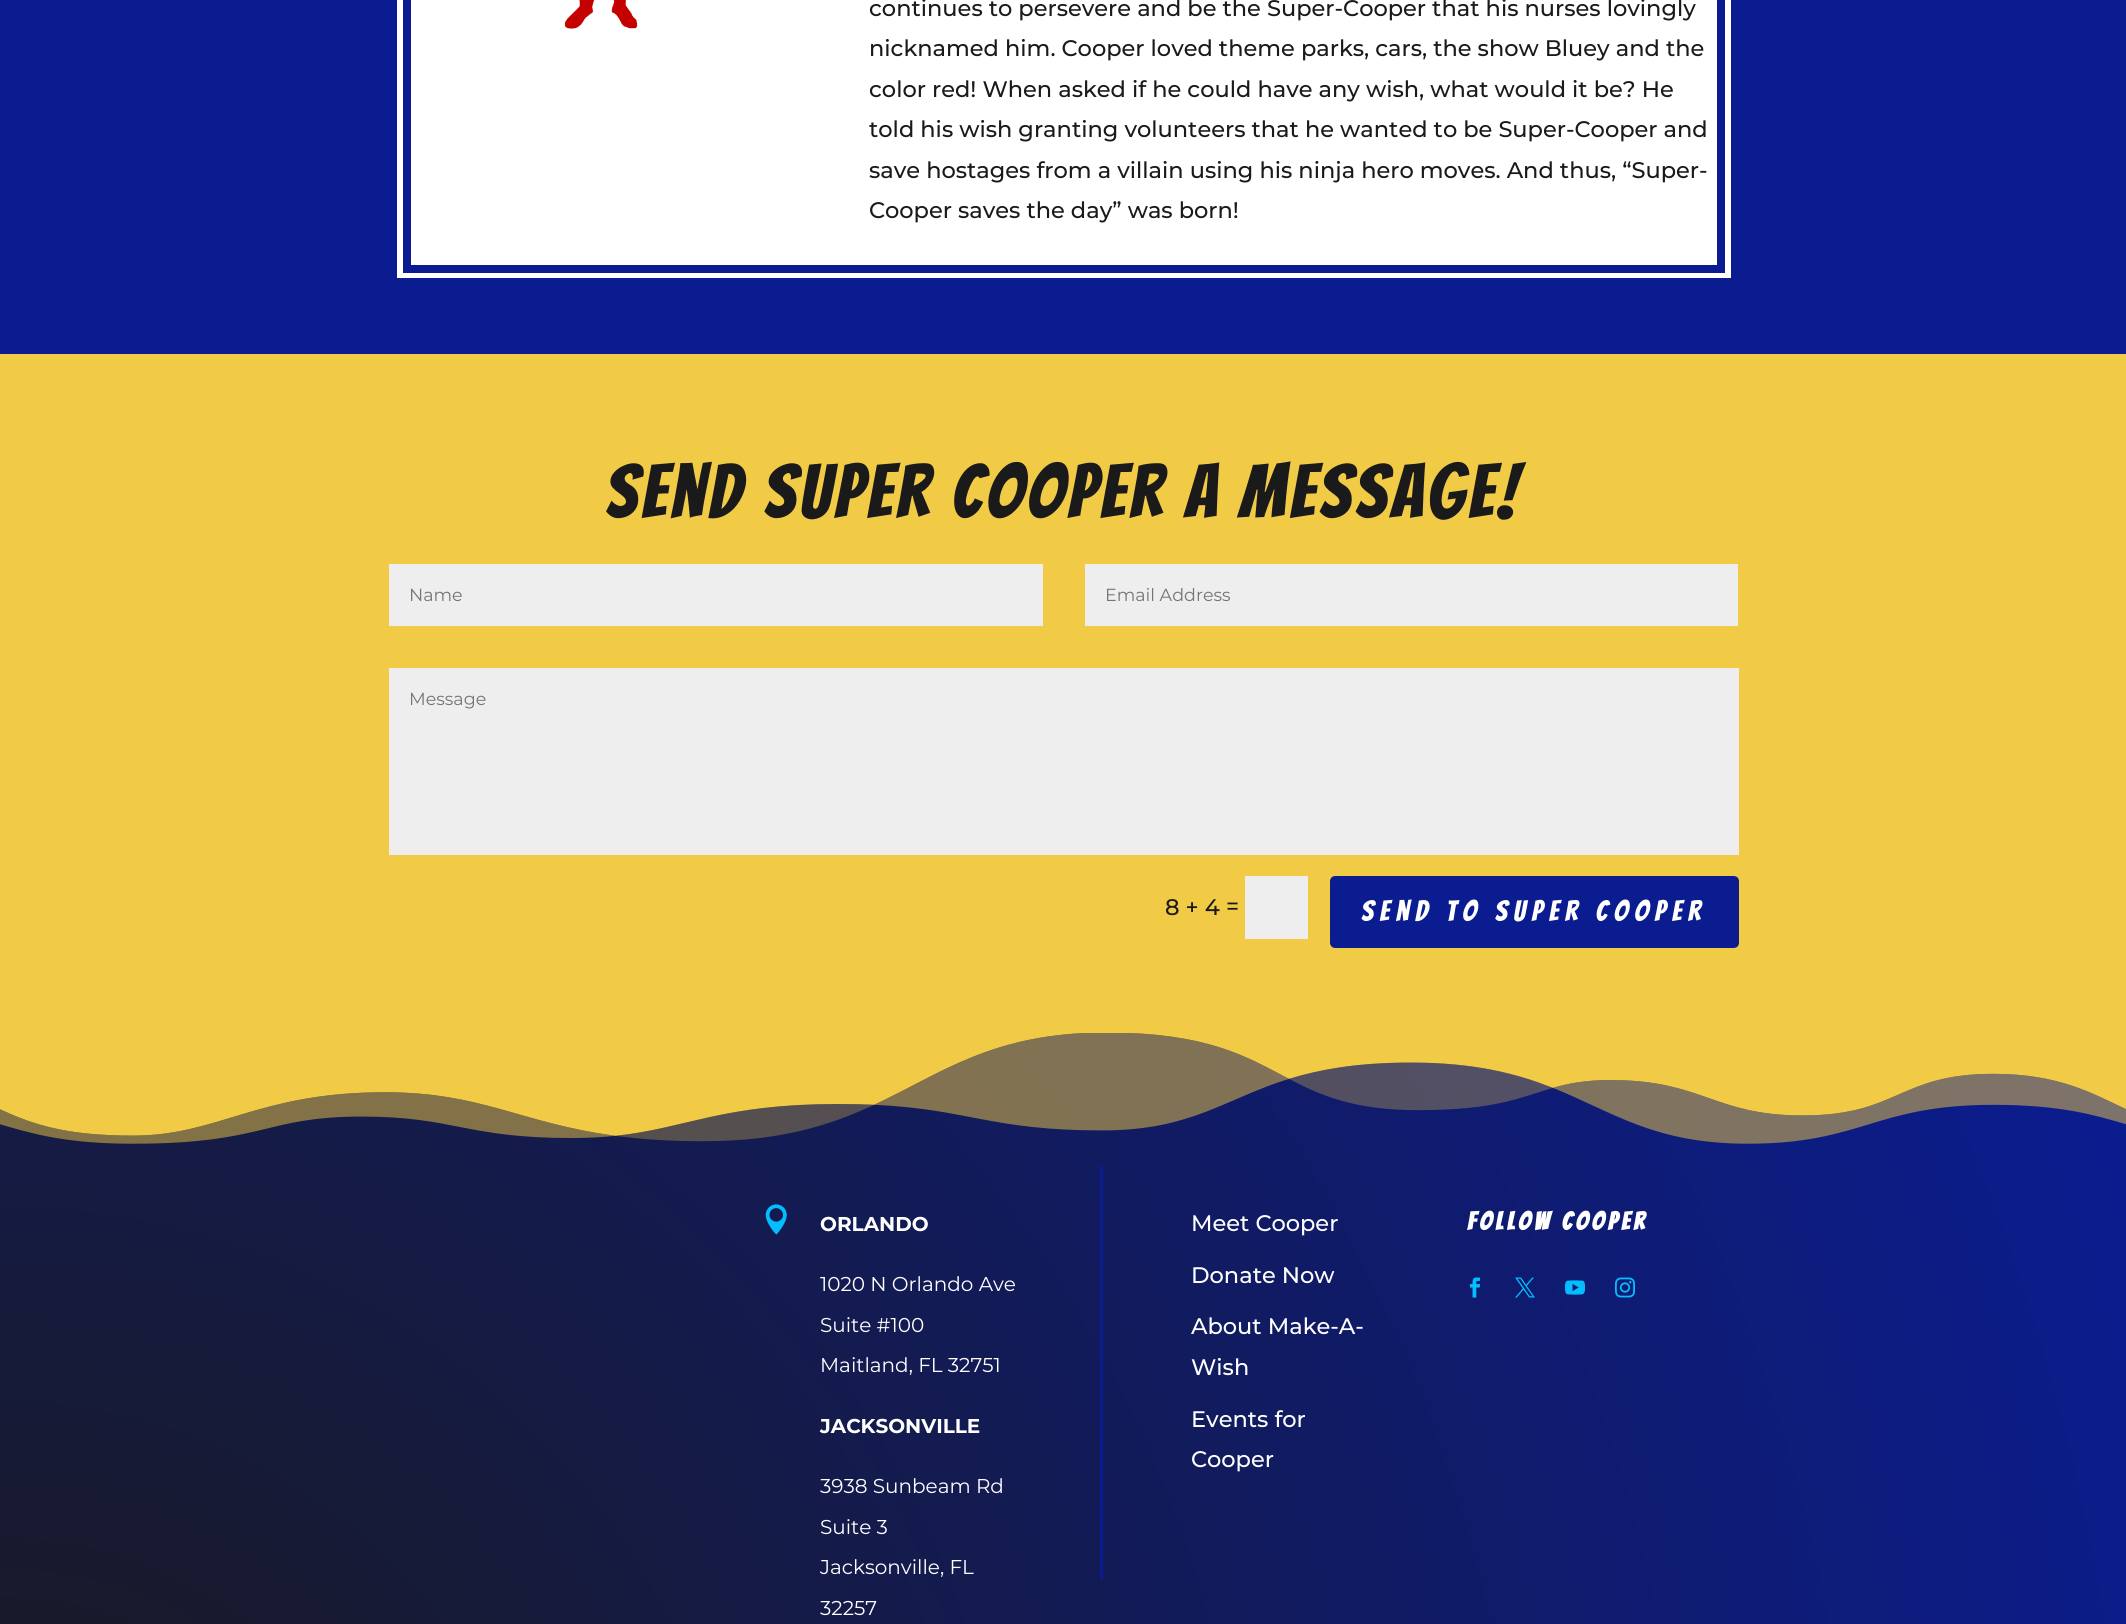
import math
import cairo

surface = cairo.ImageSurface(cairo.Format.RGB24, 2126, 1624)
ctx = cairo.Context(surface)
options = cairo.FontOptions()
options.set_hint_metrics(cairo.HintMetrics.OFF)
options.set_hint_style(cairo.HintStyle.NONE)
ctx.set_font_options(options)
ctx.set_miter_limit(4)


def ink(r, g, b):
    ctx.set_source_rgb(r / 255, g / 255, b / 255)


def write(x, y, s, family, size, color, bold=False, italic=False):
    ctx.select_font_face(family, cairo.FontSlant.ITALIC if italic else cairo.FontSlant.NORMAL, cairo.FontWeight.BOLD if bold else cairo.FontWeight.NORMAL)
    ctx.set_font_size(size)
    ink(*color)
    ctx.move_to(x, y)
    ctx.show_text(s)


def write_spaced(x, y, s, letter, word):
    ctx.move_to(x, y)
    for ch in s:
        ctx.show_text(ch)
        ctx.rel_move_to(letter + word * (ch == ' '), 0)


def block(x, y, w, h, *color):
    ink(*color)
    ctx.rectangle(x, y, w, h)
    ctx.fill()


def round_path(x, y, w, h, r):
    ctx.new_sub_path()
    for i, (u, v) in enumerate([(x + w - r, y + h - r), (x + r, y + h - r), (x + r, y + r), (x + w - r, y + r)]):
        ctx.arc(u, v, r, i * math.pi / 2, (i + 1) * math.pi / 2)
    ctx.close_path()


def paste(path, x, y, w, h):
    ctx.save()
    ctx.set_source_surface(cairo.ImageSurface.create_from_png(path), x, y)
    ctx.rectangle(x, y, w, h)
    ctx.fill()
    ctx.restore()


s1 = dict(family="Montserrat Medium", size=22.5, color=(26, 26, 26))
s2 = dict(family="Montserrat", size=17.5, color=(117, 117, 117))
s3 = dict(family="Montserrat", size=20, color=(255, 255, 255), bold=True)
s4 = dict(family="Montserrat", size=20, color=(255, 255, 255))
s5 = dict(family="Montserrat Medium", size=22.5, color=(255, 255, 255))

ink(11, 28, 145)
ctx.paint()
block(397, 0, 1334, 278, 255, 255, 255)
ctx.rectangle(407, -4, 1314, 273)
ink(11, 28, 145)
ctx.set_line_width(8)
ctx.stroke()
paste("pic1.png", 564, 0, 74, 29)
write(869, 16, "continues to persevere and be the Super-Cooper that his nurses lovingly", **s1)
write(869, 56, "nicknamed him. Cooper loved theme parks, cars, the show Bluey and the", **s1)
write(869, 97, "color red! When asked if he could have any wish, what would it be? He", **s1)
write(869, 137, "told his wish granting volunteers that he wanted to be Super-Cooper and", **s1)
write(869, 178, "save hostages from a villain using his ninja hero moves. And thus, “Super-", **s1)
write(869, 218, "Cooper saves the day” was born!", **s1)
block(0, 354, 2126, 679, 241, 202, 70)
ctx.select_font_face("Bangers")
ctx.set_font_size(75)
ink(26, 26, 26)
write_spaced(605, 518, "Send Super Cooper A Message!", 3.75, 0)
block(389, 564, 654, 62, 238, 238, 238)
write(409, 601, "Name", **s2)
block(1085, 564, 653, 62, 238, 238, 238)
write(1105, 601, "Email Address", **s2)
block(389, 668, 1350, 187, 238, 238, 238)
write(409, 705, "Message", **s2)
write(1165, 915, "8 + 4", **s1)
write(1226, 914, "=", **s1)
block(1245, 876, 63, 63, 238, 238, 238)
ink(11, 28, 145)
round_path(1331.5, 877.5, 406, 69, 3.5)
ctx.fill_preserve()
ctx.set_line_width(3)
ctx.stroke()
ctx.select_font_face("Bangers")
ctx.set_font_size(28.75)
ink(255, 255, 255)
write_spaced(1361, 921, "Send to Super Cooper", 6.25, 0)
gradient = cairo.RadialGradient(0, 1956, 0, 0, 1956, 2318)
gradient.add_color_stop_rgba(0, 0.102, 0.102, 0.102, 1)
gradient.add_color_stop_rgba(1, 0.043, 0.11, 0.569, 1)
ctx.set_source(gradient)
ctx.rectangle(0, 1033, 2126, 591)
ctx.fill()
paste("pic2.png", 0, 1033, 2126, 111)
paste("pic3.png", 765, 1204, 22, 31)
write(820, 1231, "ORLANDO", **s3)
write(820, 1291, "1020 N Orlando Ave", **s4)
write(820, 1332, "Suite #100", **s4)
write(820, 1372, "Maitland, FL 32751", **s4)
write(820, 1433, "JACKSONVILLE", **s3)
write(820, 1493, "3938 Sunbeam Rd", **s4)
write(820, 1534, "Suite 3", **s4)
write(820, 1574, "Jacksonville, FL", **s4)
write(820, 1615, "32257", **s4)
block(1100, 1166, 3, 413, 11, 28, 145)
write(1191, 1231, "Meet Cooper", **s5)
write(1191, 1283, "Donate Now", **s5)
write(1191, 1334, "About Make-A-", **s5)
write(1191, 1375, "Wish", **s5)
write(1191, 1427, "Events for", **s5)
write(1191, 1467, "Cooper", **s5)
ctx.select_font_face("Bangers", cairo.FontSlant.NORMAL, cairo.FontWeight.BOLD)
ctx.set_font_size(25)
write_spaced(1467, 1230, "Follow Cooper", 3.75, 0)
paste("pic4.png", 1470, 1277, 10, 21)
paste("pic5.png", 1515, 1277, 20, 21)
paste("pic6.png", 1565, 1280, 20, 15)
paste("pic7.png", 1615, 1277, 20, 21)
surface.write_to_png("screenshot.png")
